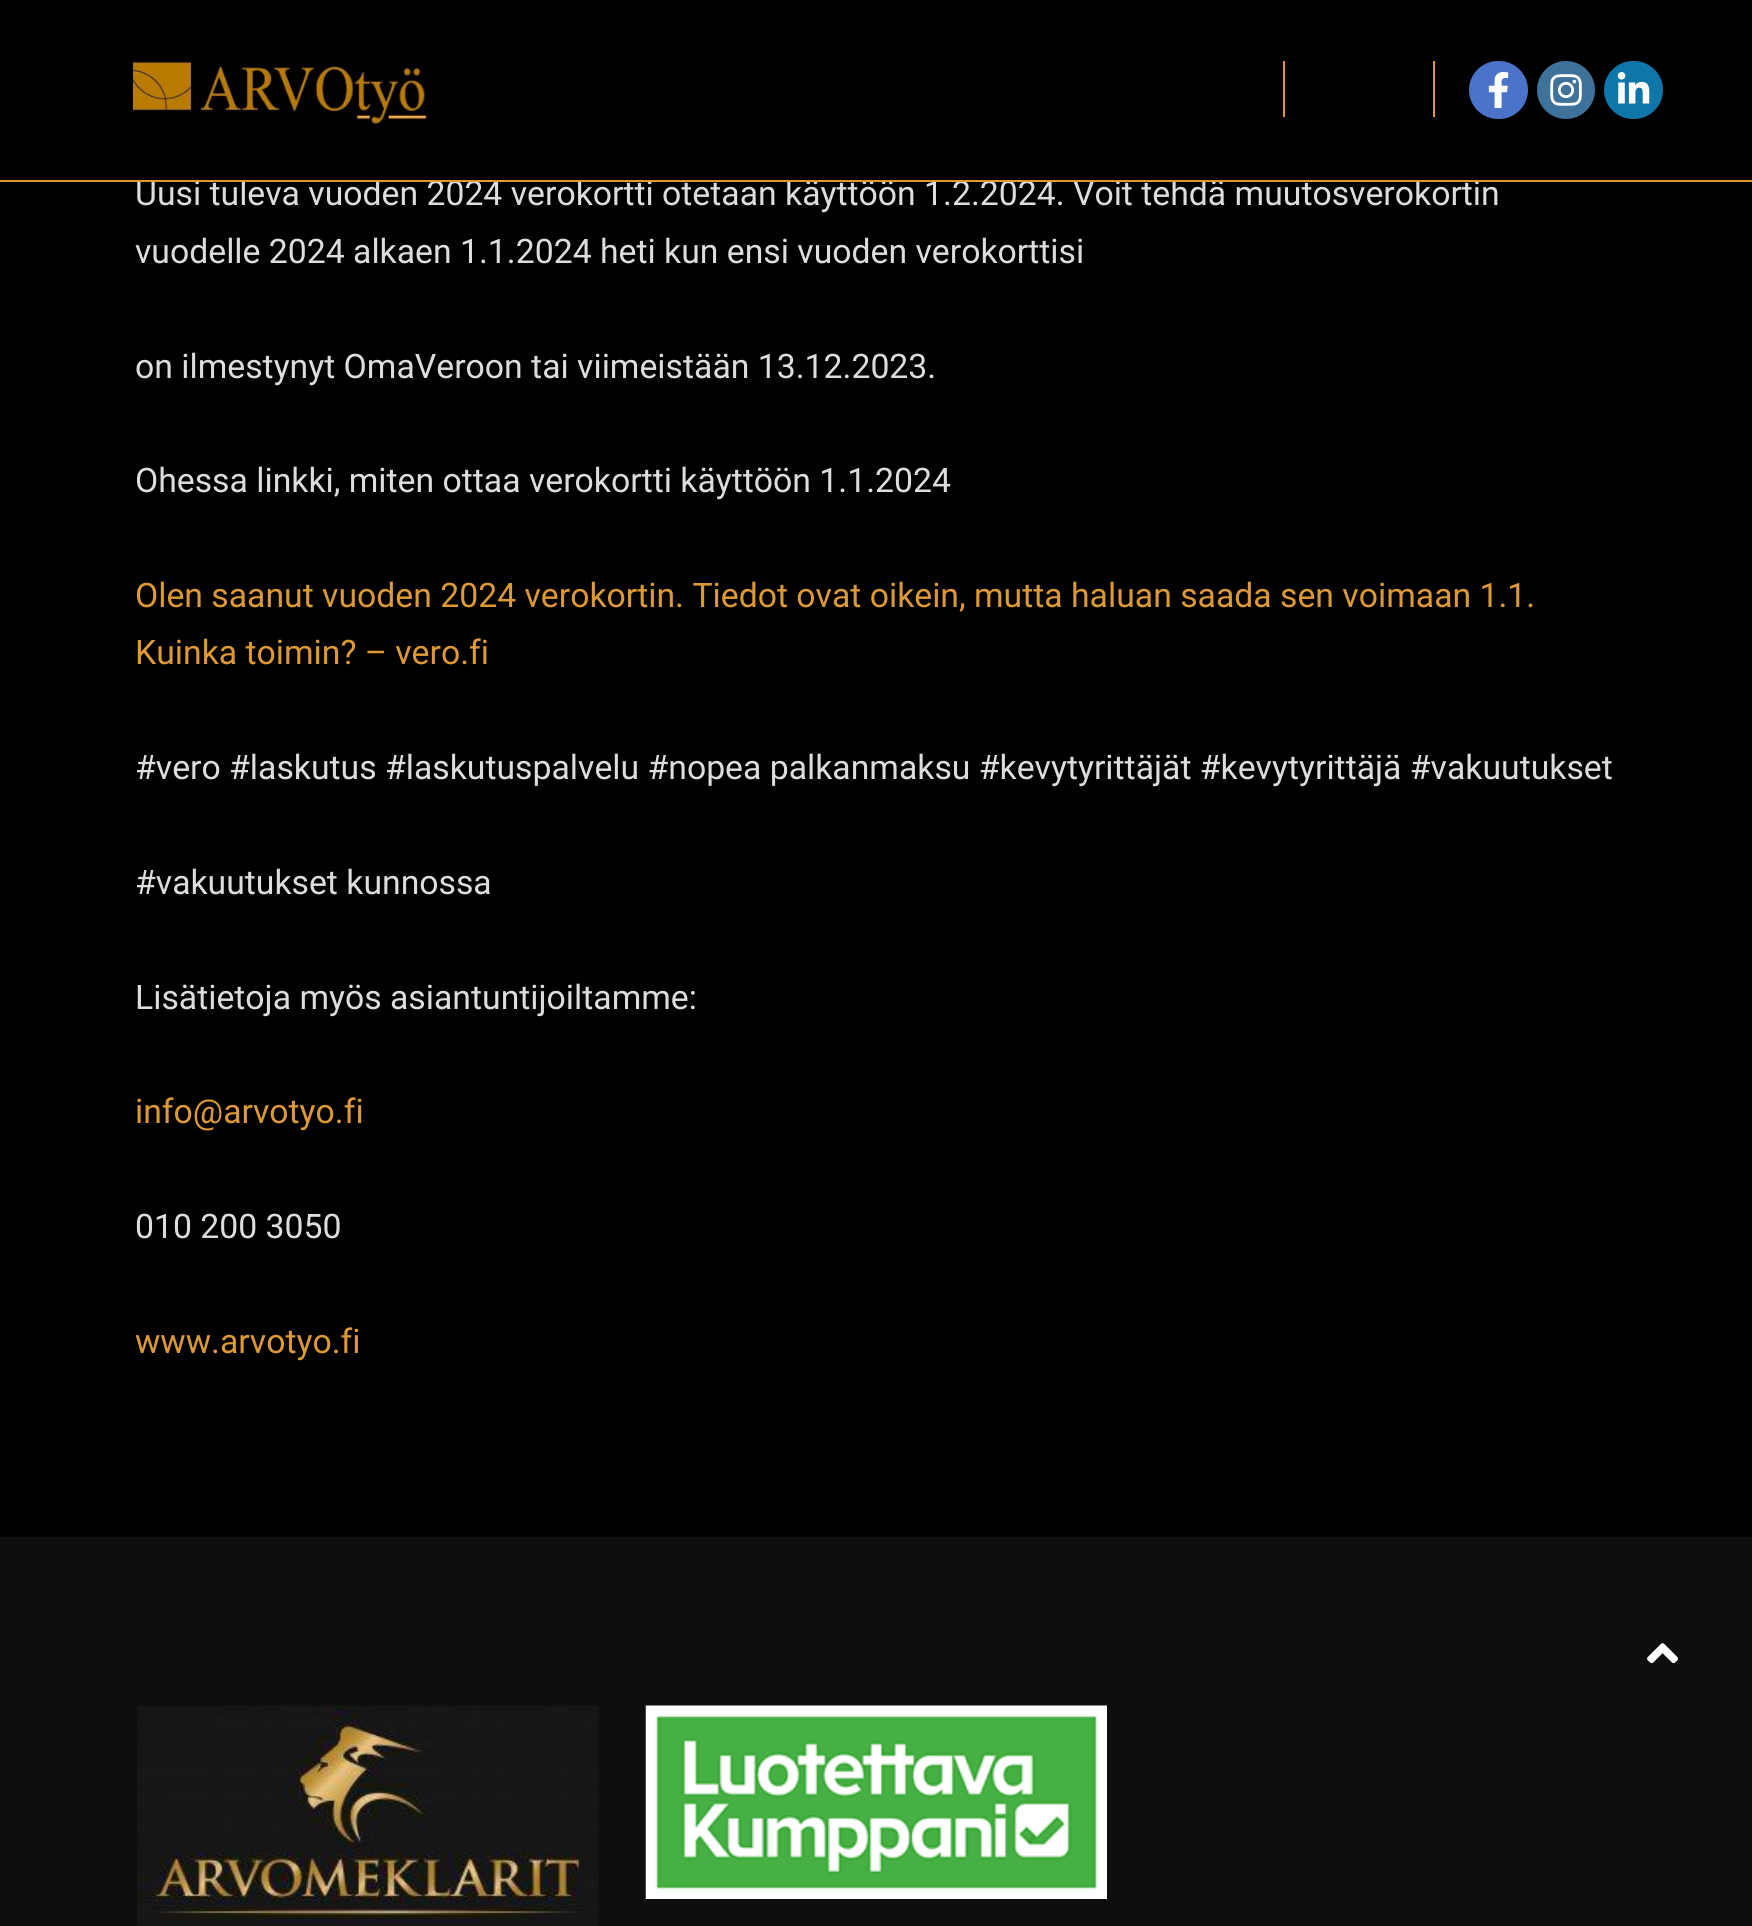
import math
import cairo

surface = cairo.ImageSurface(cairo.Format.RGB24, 1752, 1926)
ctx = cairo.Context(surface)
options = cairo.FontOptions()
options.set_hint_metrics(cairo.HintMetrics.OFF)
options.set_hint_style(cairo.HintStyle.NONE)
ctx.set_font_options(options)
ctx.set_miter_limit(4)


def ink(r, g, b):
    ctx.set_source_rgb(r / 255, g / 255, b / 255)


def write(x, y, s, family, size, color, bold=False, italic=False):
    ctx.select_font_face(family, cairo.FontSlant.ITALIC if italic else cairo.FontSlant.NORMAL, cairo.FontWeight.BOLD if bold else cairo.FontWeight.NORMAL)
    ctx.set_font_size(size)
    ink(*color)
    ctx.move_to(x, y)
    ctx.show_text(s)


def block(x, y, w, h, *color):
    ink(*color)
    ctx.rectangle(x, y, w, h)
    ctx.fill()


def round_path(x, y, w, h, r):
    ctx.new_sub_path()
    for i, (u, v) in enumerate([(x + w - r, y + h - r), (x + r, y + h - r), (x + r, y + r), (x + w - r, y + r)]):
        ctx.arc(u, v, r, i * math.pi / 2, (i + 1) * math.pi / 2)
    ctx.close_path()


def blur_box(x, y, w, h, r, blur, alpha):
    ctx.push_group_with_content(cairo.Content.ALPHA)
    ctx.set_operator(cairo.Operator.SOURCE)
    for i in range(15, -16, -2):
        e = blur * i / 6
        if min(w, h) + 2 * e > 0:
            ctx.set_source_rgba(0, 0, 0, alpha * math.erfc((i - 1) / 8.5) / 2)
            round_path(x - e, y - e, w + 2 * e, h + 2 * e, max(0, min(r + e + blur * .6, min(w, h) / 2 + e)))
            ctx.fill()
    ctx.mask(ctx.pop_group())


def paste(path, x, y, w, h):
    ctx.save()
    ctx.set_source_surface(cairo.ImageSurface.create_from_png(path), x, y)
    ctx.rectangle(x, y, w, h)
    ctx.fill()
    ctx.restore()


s1 = dict(family="Roboto", size=33.75, color=(221, 221, 221))
s2 = dict(family="Roboto", size=33.75, color=(221, 153, 51))

ink(0, 0, 0)
ctx.paint()
blur_box(0, 0, 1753, 182, 0, 13.5, 0.09)
write(135, 205, "Uusi tuleva vuoden 2024 verokortti otetaan käyttöön 1.2.2024. Voit tehdä muutosverokortin", **s1)
block(241, 179, 1179, 1, 0, 0, 0)
block(0, 180, 1752, 2, 221, 153, 51)
paste("pic1.png", 130, 60, 298, 67)
block(1283, 61, 2, 56, 221, 153, 51)
block(1433, 61, 2, 56, 221, 153, 51)
ink(74, 115, 201)
round_path(1469, 61, 59, 58, 29)
ctx.fill()
paste("pic2.png", 1488, 72, 21, 36)
ink(63, 114, 155)
ctx.arc(1566, 90, 29, 0, 2 * math.pi)
ctx.fill()
paste("pic3.png", 1550, 74, 32, 32)
ink(14, 118, 168)
round_path(1604, 61, 59, 58, 29)
ctx.fill()
paste("pic4.png", 1617, 72, 33, 32)
write(135, 263, "vuodelle 2024 alkaen 1.1.2024 heti kun ensi vuoden verokorttisi", **s1)
write(135, 378, "on ilmestynyt OmaVeroon tai viimeistään 13.12.2023.", **s1)
write(135, 492, "Ohessa linkki, miten ottaa verokortti käyttöön 1.1.2024", **s1)
write(135, 607, "Olen saanut vuoden 2024 verokortin. Tiedot ovat oikein, mutta haluan saada sen voimaan 1.1.", **s2)
write(135, 664, "Kuinka toimin? – vero.fi", **s2)
write(135, 779, "#vero #laskutus #laskutuspalvelu #nopea palkanmaksu #kevytyrittäjät #kevytyrittäjä #vakuutukset", **s1)
write(135, 894, "#vakuutukset kunnossa", **s1)
write(135, 1009, "Lisätietoja myös asiantuntijoiltamme:", **s1)
write(135, 1123, "info@arvotyo.fi", **s2)
write(135, 1238, "010 200 3050", **s1)
write(135, 1353, "www.arvotyo.fi", **s2)
block(0, 1537, 1752, 389, 14, 14, 14)
paste("pic5.png", 137, 1705, 462, 221)
paste("pic6.png", 645, 1705, 462, 194)
paste("pic7.png", 1647, 1643, 31, 21)
surface.write_to_png("screenshot.png")
